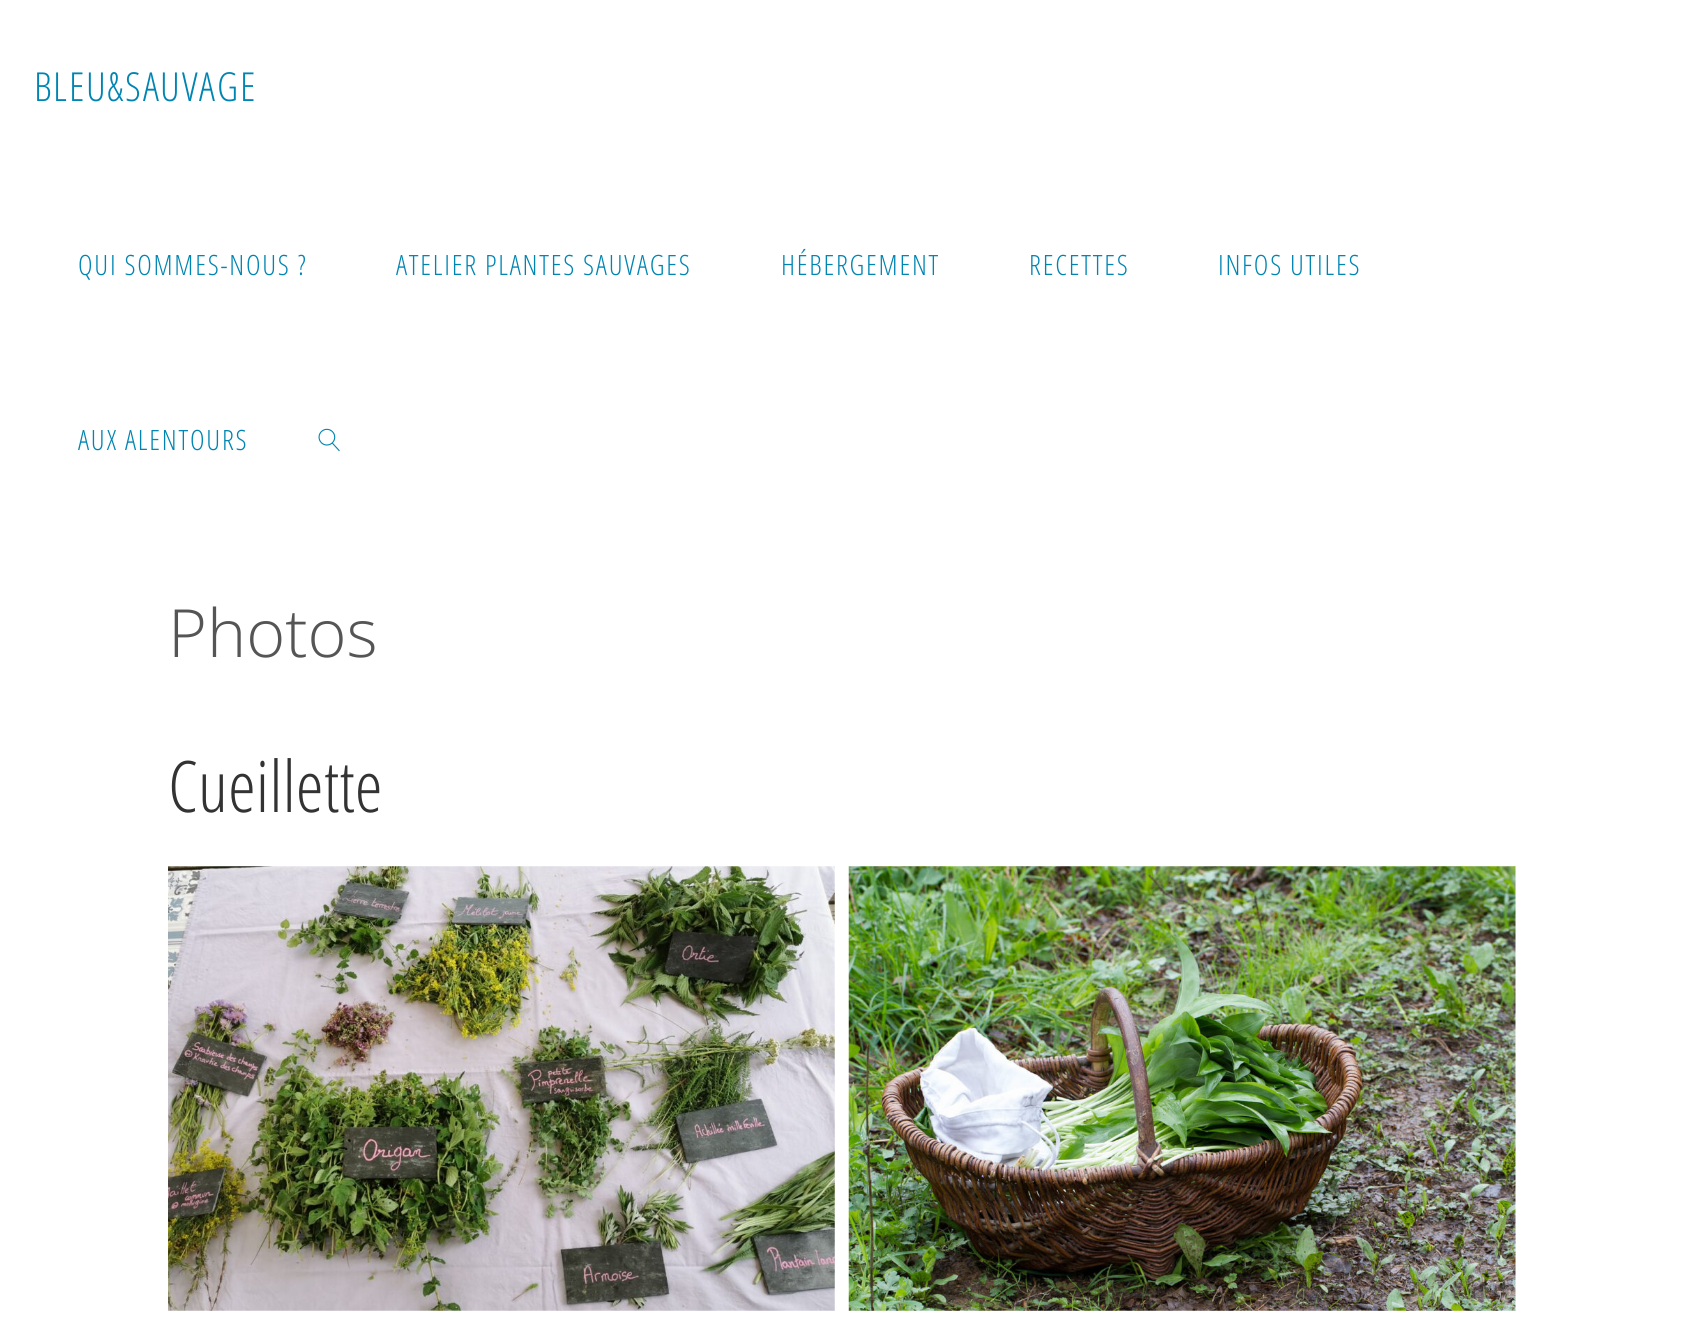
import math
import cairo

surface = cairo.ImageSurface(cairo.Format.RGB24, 1682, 1330)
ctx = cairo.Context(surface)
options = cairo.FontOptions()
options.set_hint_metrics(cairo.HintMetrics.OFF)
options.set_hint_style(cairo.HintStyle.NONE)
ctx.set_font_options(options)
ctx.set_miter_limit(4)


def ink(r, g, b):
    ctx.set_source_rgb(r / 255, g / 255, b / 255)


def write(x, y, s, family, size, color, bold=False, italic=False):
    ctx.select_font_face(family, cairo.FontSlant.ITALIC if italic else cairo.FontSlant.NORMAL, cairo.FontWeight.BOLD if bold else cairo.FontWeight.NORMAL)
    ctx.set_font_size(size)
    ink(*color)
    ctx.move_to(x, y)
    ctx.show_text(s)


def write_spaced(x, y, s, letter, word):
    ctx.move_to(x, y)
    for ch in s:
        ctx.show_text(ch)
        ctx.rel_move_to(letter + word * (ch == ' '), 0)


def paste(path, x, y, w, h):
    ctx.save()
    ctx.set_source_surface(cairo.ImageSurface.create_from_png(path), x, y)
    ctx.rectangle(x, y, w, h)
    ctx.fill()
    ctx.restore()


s1 = dict(family="Open Sans Condensed Light", size=40, color=(0, 133, 178))
s2 = dict(family="Open Sans Light", size=66.5, color=(85, 85, 85))
s3 = dict(family="Open Sans Condensed Light", size=71, color=(51, 51, 51))

ink(255, 255, 255)
ctx.paint()
write(34, 101, "B", **s1)
write(53, 101, "L", **s1)
write(69, 101, "E", **s1)
write(86, 101, "U", **s1)
write(107, 101, "&", **s1)
write(125, 101, "S", **s1)
write(143, 101, "A", **s1)
write(160, 101, "U", **s1)
write(182, 101, "V", **s1)
write(199, 101, "A", **s1)
write(217, 101, "G", **s1)
write(240, 101, "E", **s1)
ctx.set_font_size(28)
write_spaced(78, 275, "QUI SOMMES-NOUS ?", 1.75, 0)
write_spaced(396, 275, "ATELIER PLANTES SAUVAGES", 1.75, 0)
write_spaced(781, 275, "HÉBERGEMENT", 1.75, 0)
write_spaced(1029, 275, "RECETTES", 1.75, 0)
write_spaced(1218, 275, "INFOS UTILES", 1.75, 0)
write_spaced(78, 450, "AUX ALENTOURS", 1.75, 0)
paste("pic1.png", 318, 428, 22, 24)
write(168, 657, "Photos", **s2)
write(168, 812, "Cueillette", **s3)
paste("pic2.png", 168, 866, 667, 445)
paste("pic3.png", 848, 866, 668, 445)
surface.write_to_png("screenshot.png")
